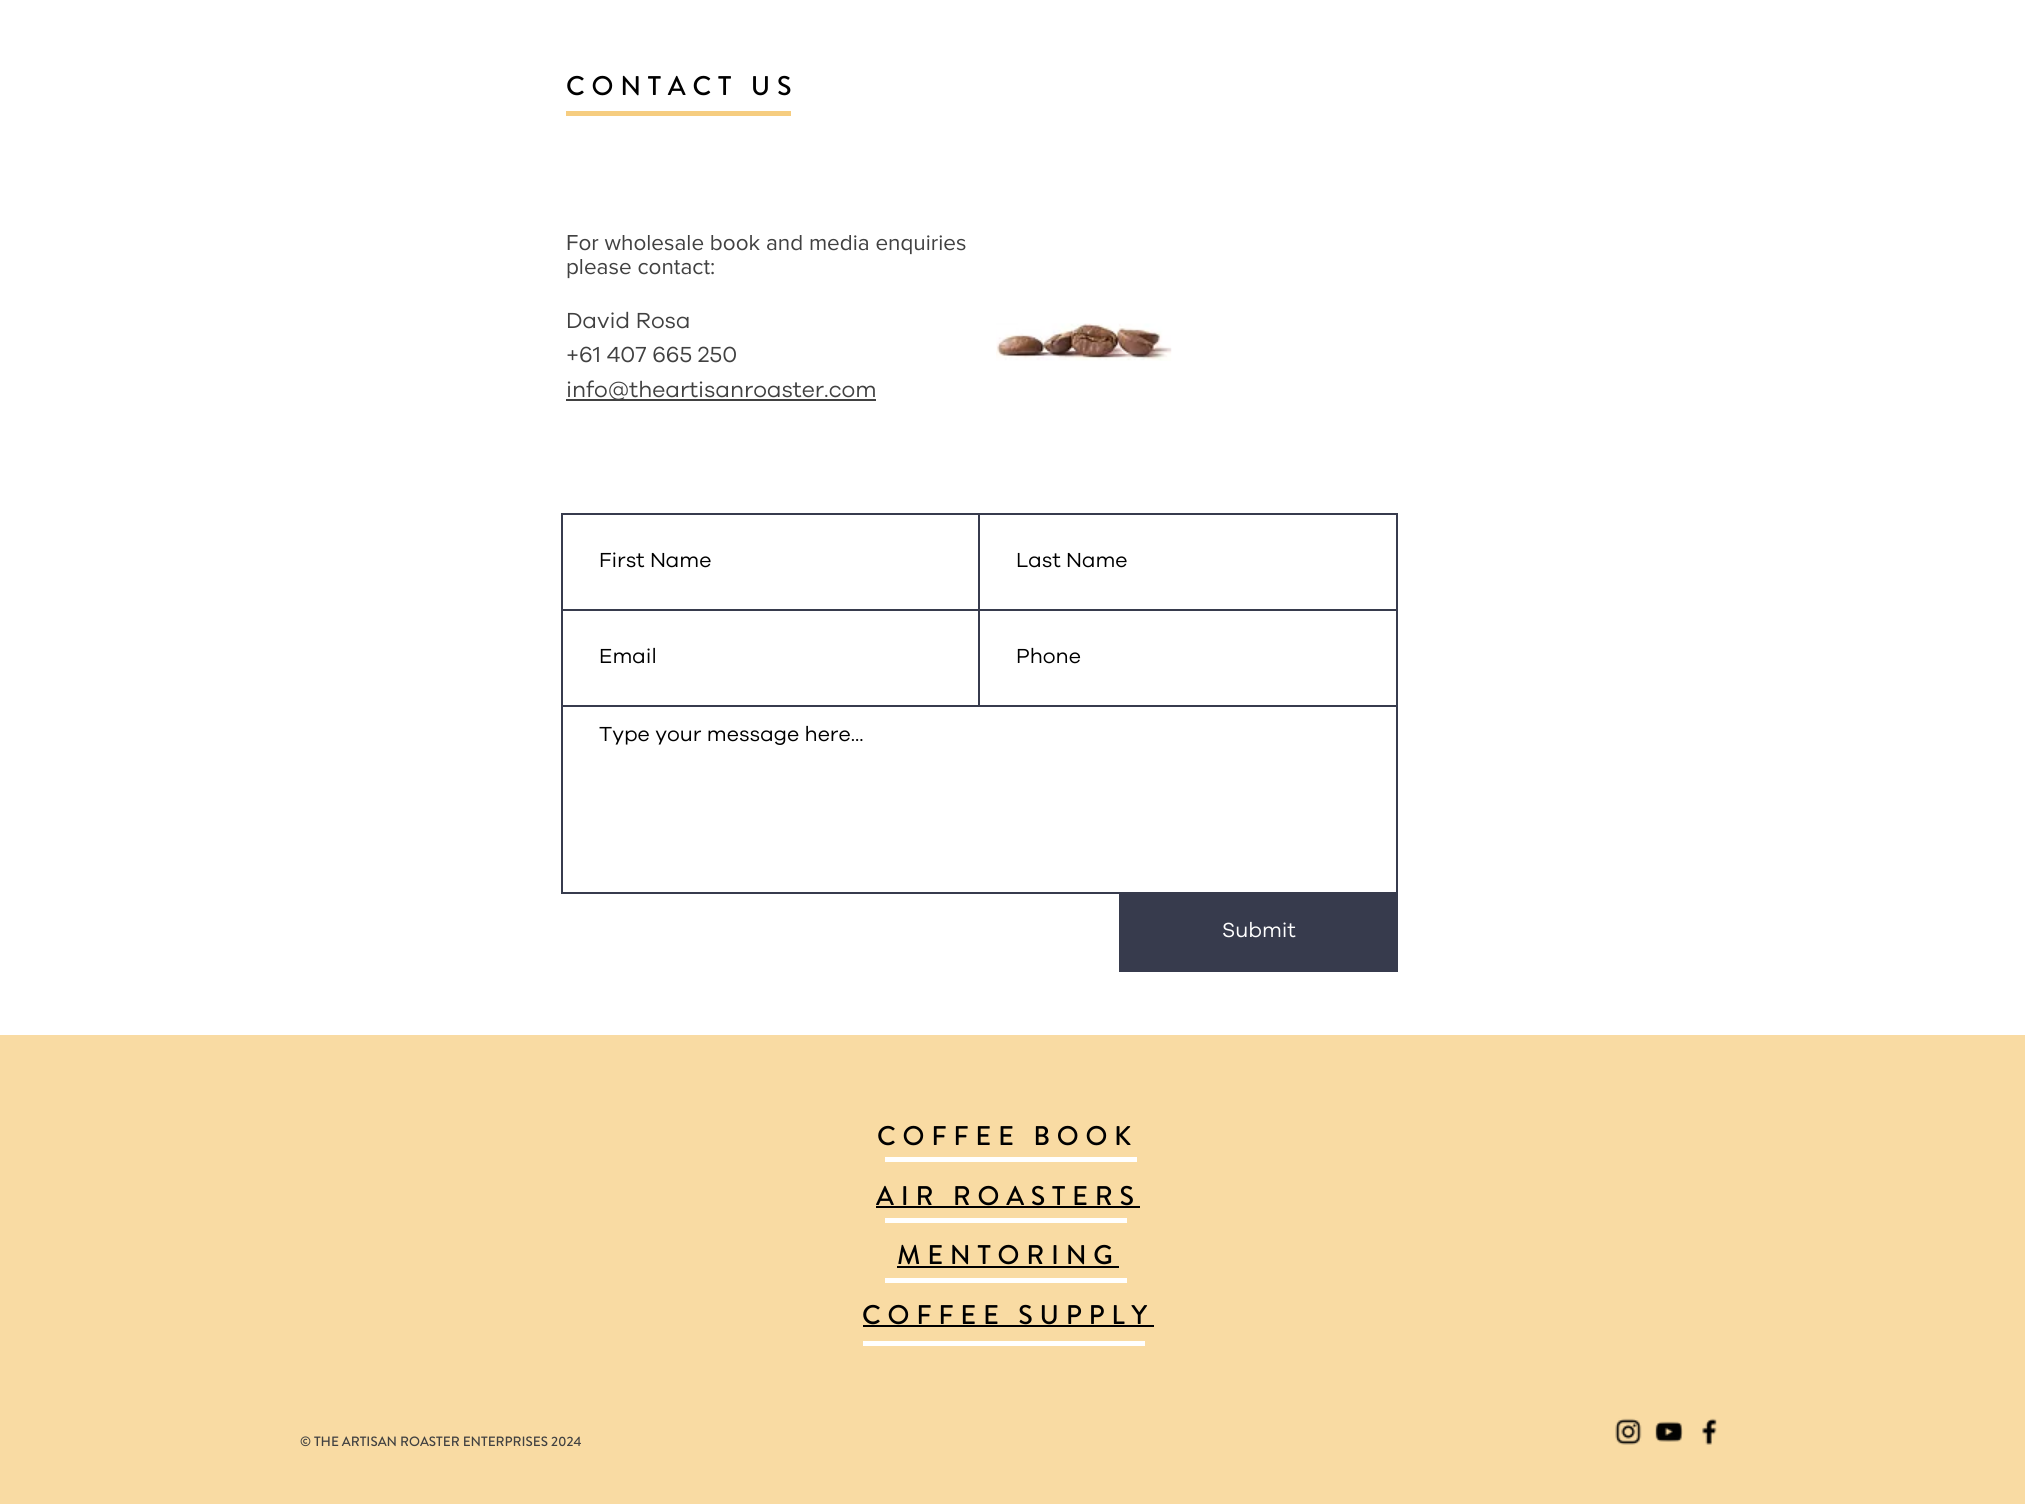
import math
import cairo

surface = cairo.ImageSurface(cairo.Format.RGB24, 2025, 1504)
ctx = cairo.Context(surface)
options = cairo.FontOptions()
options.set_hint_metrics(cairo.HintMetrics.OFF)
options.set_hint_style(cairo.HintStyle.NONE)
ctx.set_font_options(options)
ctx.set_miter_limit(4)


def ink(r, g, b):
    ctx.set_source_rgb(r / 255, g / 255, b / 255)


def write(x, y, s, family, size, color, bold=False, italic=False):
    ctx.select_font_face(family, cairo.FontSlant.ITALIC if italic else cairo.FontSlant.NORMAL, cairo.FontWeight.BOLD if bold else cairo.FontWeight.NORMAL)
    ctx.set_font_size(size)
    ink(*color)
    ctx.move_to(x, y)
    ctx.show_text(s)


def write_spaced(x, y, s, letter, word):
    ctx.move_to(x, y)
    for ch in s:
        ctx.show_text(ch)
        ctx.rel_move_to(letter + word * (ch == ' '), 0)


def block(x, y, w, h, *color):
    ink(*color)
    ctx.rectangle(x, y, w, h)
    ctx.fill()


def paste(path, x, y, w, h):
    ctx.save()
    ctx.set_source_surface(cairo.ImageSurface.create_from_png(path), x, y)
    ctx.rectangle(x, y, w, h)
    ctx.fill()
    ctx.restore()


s1 = dict(family="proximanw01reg", size=22.5, color=(65, 65, 65))
s2 = dict(family="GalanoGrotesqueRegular", size=22.5, color=(65, 65, 65))
s3 = dict(family="GalanoGrotesqueRegular", size=21, color=(0, 0, 0))
s4 = dict(family="GalanoGrotesqueRegular", size=21, color=(255, 255, 255))
s5 = dict(family="Brandon Grotesque Medium", size=13.5, color=(65, 65, 65))

ink(255, 255, 255)
ctx.paint()
ctx.select_font_face("Brandon Grotesque Medium")
ctx.set_font_size(27)
ink(0, 0, 0)
write_spaced(566, 95, "CONTACT US", 6.75, 0)
block(566, 111, 225, 5, 246, 205, 128)
write(566, 250, "For wholesale book and media enquiries", **s1)
write(566, 274, "please contact:", **s1)
write(566, 328, "David Rosa", **s2)
write(566, 362, "+61 407 665 250", **s2)
block(566, 399, 310, 2, 65, 65, 65)
write(566, 397, "info@theartisanroaster.com", **s2)
paste("pic1.png", 996, 323, 176, 38)
ctx.rectangle(562, 514, 418, 97)
ink(55, 59, 77)
ctx.stroke()
write(599, 567, "First Name", **s3)
block(980, 515, 1, 94, 255, 255, 255)
ctx.rectangle(979, 514, 418, 97)
ink(55, 59, 77)
ctx.stroke()
write(1016, 567, "Last Name", **s3)
block(563, 611, 415, 1, 255, 255, 255)
ctx.rectangle(562, 610, 418, 97)
ink(55, 59, 77)
ctx.stroke()
write(599, 663, "Email", **s3)
block(980, 611, 416, 94, 255, 255, 255)
ctx.rectangle(979, 610, 418, 97)
ink(55, 59, 77)
ctx.stroke()
write(1016, 663, "Phone", **s3)
block(563, 707, 833, 1, 255, 255, 255)
ctx.rectangle(562, 706, 835, 187)
ink(55, 59, 77)
ctx.stroke()
write(599, 741, "Type your message here...", **s3)
block(1119, 894, 279, 78, 55, 59, 77)
write(1222, 937, "Submit", **s4)
block(0, 1035, 2025, 469, 249, 219, 163)
ctx.select_font_face("Brandon Grotesque Medium")
ctx.set_font_size(27)
ink(0, 0, 0)
write_spaced(877, 1145, "COFFEE BOOK", 6.75, 0)
write_spaced(876, 1205, "AIR ROASTERS", 6.75, 0)
block(876, 1206, 264, 2, 0, 0, 0)
write_spaced(897, 1264, "MENTORING", 6.75, 0)
block(897, 1266, 222, 2, 0, 0, 0)
write_spaced(862, 1324, "COFFEE SUPPLY", 6.75, 0)
block(863, 1325, 291, 2, 0, 0, 0)
block(885, 1157, 252, 5, 255, 255, 255)
block(885, 1218, 242, 5, 255, 255, 255)
block(885, 1278, 242, 5, 255, 255, 255)
block(863, 1341, 282, 5, 255, 255, 255)
write(300, 1446, "© THE ARTISAN ROASTER ENTERPRISES 2024", **s5)
paste("pic2.png", 1615, 1418, 27, 27)
paste("pic3.png", 1655, 1421, 28, 21)
paste("pic4.png", 1702, 1418, 15, 27)
surface.write_to_png("screenshot.png")
